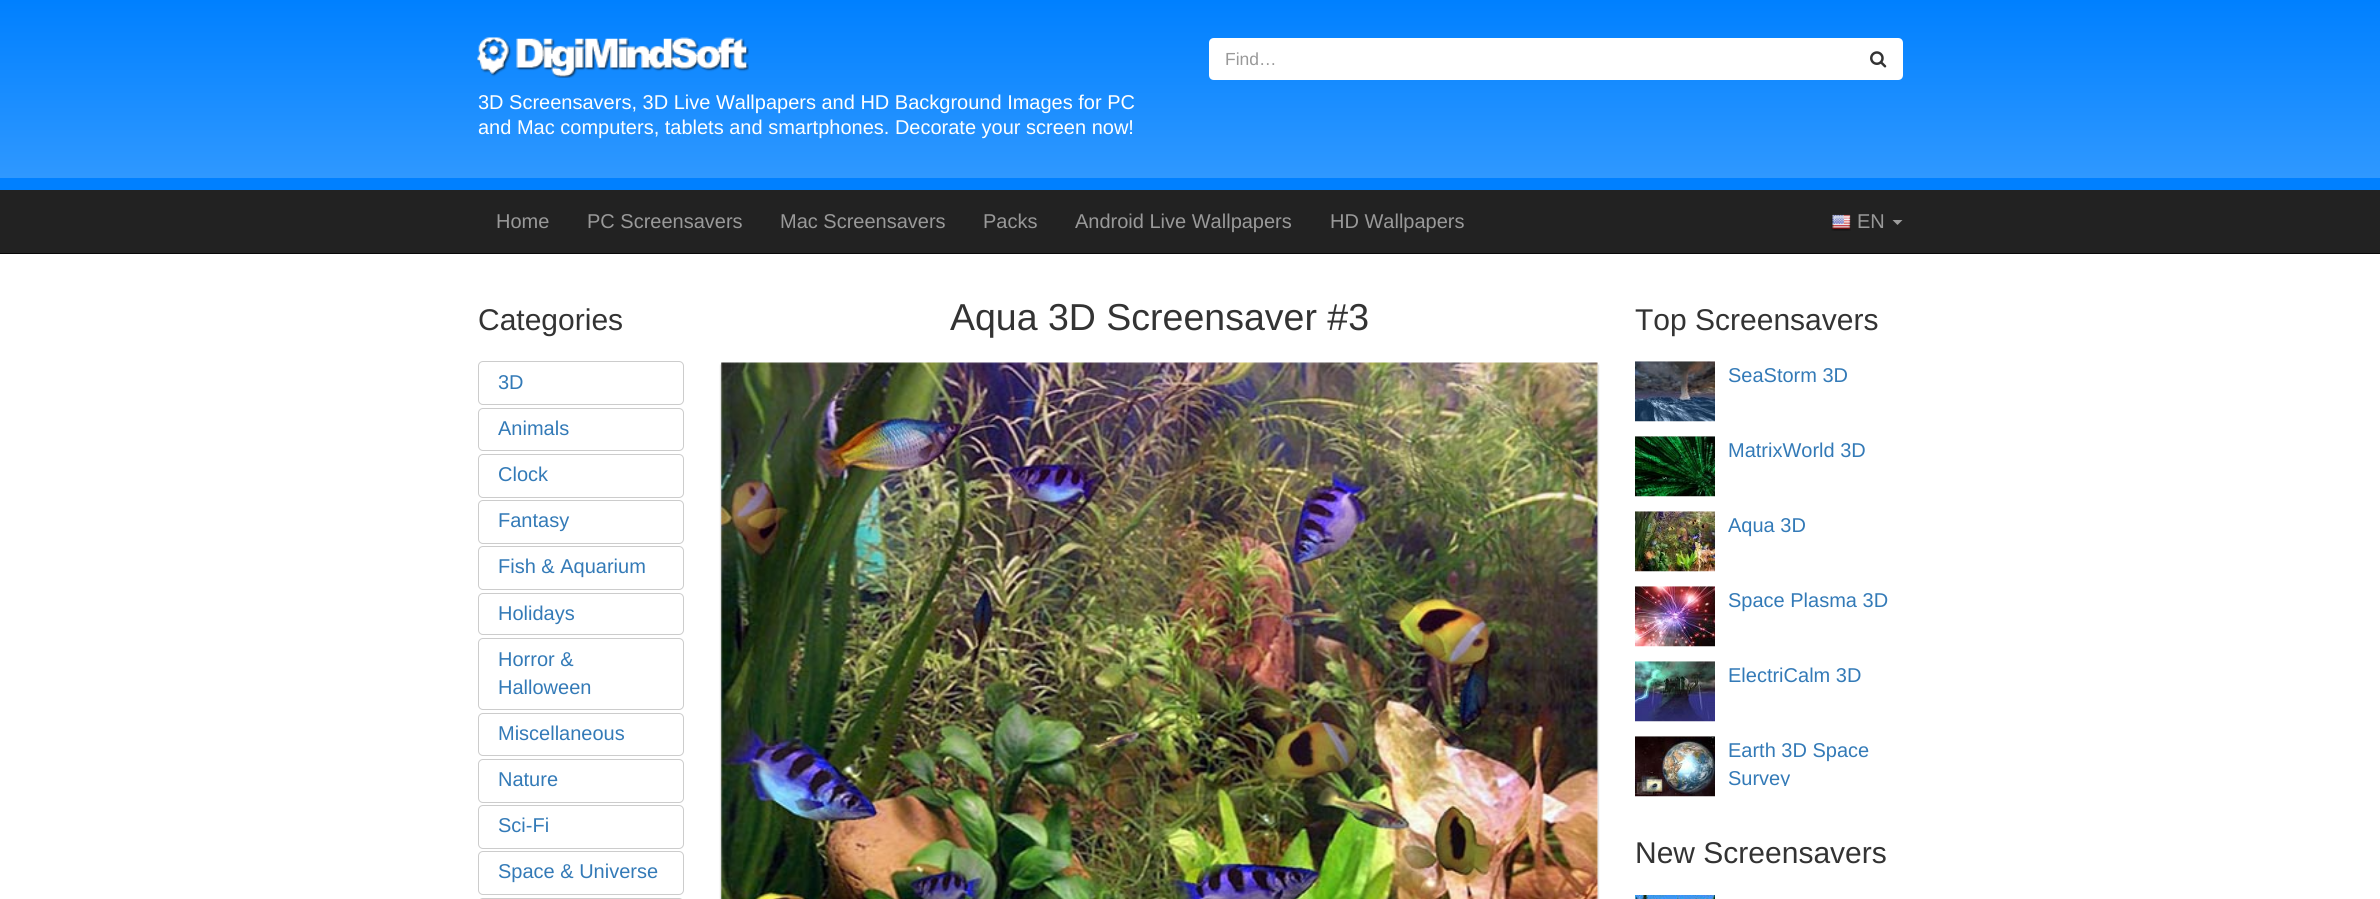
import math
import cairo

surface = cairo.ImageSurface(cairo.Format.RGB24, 2380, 899)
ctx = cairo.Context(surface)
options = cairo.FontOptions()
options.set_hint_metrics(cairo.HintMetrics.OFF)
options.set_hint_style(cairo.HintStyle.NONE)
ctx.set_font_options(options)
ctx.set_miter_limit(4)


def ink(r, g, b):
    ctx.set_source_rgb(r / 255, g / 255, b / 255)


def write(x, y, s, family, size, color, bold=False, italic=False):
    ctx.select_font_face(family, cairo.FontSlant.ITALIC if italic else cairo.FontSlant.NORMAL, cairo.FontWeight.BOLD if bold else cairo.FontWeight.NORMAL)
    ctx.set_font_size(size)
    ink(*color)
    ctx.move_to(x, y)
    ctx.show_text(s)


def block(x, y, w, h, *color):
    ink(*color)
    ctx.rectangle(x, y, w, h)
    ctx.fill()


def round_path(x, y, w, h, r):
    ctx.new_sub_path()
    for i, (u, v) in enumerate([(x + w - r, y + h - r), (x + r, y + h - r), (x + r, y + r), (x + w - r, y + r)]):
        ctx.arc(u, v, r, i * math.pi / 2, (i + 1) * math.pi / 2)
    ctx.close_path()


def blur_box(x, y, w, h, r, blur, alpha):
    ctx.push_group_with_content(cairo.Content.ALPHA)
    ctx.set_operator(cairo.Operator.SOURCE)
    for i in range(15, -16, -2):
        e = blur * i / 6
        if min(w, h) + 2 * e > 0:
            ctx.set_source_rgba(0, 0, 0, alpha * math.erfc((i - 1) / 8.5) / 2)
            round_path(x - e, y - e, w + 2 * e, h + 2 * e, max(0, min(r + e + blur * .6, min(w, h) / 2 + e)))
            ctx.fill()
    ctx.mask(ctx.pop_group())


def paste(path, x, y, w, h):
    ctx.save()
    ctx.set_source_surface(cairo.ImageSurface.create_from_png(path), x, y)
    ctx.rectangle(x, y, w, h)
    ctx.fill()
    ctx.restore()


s1 = dict(family="Liberation Sans", size=17.5, color=(153, 153, 153))
s2 = dict(family="Liberation Sans", size=20, color=(255, 255, 255))
s3 = dict(family="Liberation Sans", size=20, color=(153, 153, 153))
s4 = dict(family="Liberation Sans", size=30, color=(51, 51, 51))
s5 = dict(family="Liberation Sans", size=20, color=(51, 122, 183))
s6 = dict(family="Liberation Sans", size=37.5, color=(51, 51, 51))

ink(255, 255, 255)
ctx.paint()
block(0, 178, 2380, 12, 0, 128, 255)
gradient = cairo.LinearGradient(1190, 0, 1190, 178)
gradient.add_color_stop_rgba(0, 0, 0.502, 1, 1)
gradient.add_color_stop_rgba(1, 0.184, 0.596, 1, 1)
ctx.set_source(gradient)
ctx.rectangle(0, 0, 2380, 178)
ctx.fill()
ink(255, 255, 255)
ctx.new_path()
ctx.move_to(1214, 38)
ctx.line_to(1855, 38)
ctx.line_to(1855, 80)
ctx.line_to(1214, 80)
ctx.curve_to(1211, 80, 1209, 78, 1209, 75)
ctx.line_to(1209, 43)
ctx.curve_to(1209, 40, 1211, 38, 1214, 38)
ctx.close_path()
ctx.fill()
write(1225, 65, "Find…", **s1)
ink(255, 255, 255)
ctx.new_path()
ctx.move_to(1854, 38)
ctx.line_to(1898, 38)
ctx.curve_to(1901, 38, 1903, 40, 1903, 43)
ctx.line_to(1903, 75)
ctx.curve_to(1903, 78, 1901, 80, 1898, 80)
ctx.line_to(1854, 80)
ctx.close_path()
ctx.fill()
paste("pic1.png", 1870, 51, 17, 17)
paste("pic2.png", 477, 37, 272, 41)
write(478, 109, "3D Screensavers, 3D Live Wallpapers and HD Background Images for PC", **s2)
write(478, 134, "and Mac computers, tablets and smartphones. Decorate your screen now!", **s2)
block(0, 190, 2380, 63, 34, 34, 34)
block(0, 253, 2380, 1, 8, 8, 8)
write(496, 228, "Home", **s3)
write(587, 228, "PC Screensavers", **s3)
write(780, 228, "Mac Screensavers", **s3)
write(983, 228, "Packs", **s3)
write(1075, 228, "Android Live Wallpapers", **s3)
write(1330, 228, "HD Wallpapers", **s3)
paste("pic3.png", 1831, 214, 20, 17)
write(1857, 228, "EN", **s3)
ink(157, 157, 157)
ctx.new_path()
ctx.move_to(1892.5, 220)
ctx.line_to(1902.5, 220)
ctx.line_to(1897.5, 225)
ctx.close_path()
ctx.fill()
write(478, 330, "Categories", **s4)
round_path(478.5, 361.5, 205, 43, 4.5)
ink(204, 204, 204)
ctx.set_line_width(1)
ctx.stroke()
write(498, 389, "3D", **s5)
round_path(478.5, 408.5, 205, 42, 4.5)
ink(204, 204, 204)
ctx.stroke()
write(498, 435, "Animals", **s5)
round_path(478.5, 454.5, 205, 43, 4.5)
ink(204, 204, 204)
ctx.stroke()
write(498, 481, "Clock", **s5)
round_path(478.5, 500.5, 205, 43, 4.5)
ink(204, 204, 204)
ctx.stroke()
write(498, 527, "Fantasy", **s5)
round_path(478.5, 546.5, 205, 43, 4.5)
ink(204, 204, 204)
ctx.stroke()
write(498, 573, "Fish & Aquarium", **s5)
round_path(478.5, 593.5, 205, 41, 4.5)
ink(204, 204, 204)
ctx.stroke()
write(498, 620, "Holidays", **s5)
round_path(478.5, 638.5, 205, 71, 4.5)
ink(204, 204, 204)
ctx.stroke()
write(498, 666, "Horror &", **s5)
write(498, 694, "Halloween", **s5)
round_path(478.5, 713.5, 205, 42, 4.5)
ink(204, 204, 204)
ctx.stroke()
write(498, 740, "Miscellaneous", **s5)
round_path(478.5, 759.5, 205, 43, 4.5)
ink(204, 204, 204)
ctx.stroke()
write(498, 786, "Nature", **s5)
round_path(478.5, 805.5, 205, 43, 4.5)
ink(204, 204, 204)
ctx.stroke()
write(498, 832, "Sci-Fi", **s5)
round_path(478.5, 851.5, 205, 43, 4.5)
ink(204, 204, 204)
ctx.stroke()
write(498, 878, "Space & Universe", **s5)
round_path(478.5, 898.5, 205, 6, 4.5)
ink(204, 204, 204)
ctx.stroke()
write(950, 330, "Aqua 3D Screensaver #3", **s6)
ink(0, 0, 0)
blur_box(721, 365, 877, 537, 0, 1, 0.3)
block(721, 363, 877, 536, 238, 238, 238)
paste("pic4.png", 721, 362, 877, 537)
write(1635, 330, "Top Screensavers", **s4)
paste("pic5.png", 1635, 361, 80, 61)
write(1728, 382, "SeaStorm 3D", **s5)
paste("pic6.png", 1635, 436, 80, 61)
write(1728, 457, "MatrixWorld 3D", **s5)
paste("pic7.png", 1635, 511, 80, 61)
write(1728, 532, "Aqua 3D", **s5)
paste("pic8.png", 1635, 586, 80, 61)
write(1728, 607, "Space Plasma 3D", **s5)
paste("pic9.png", 1635, 661, 80, 61)
write(1728, 682, "ElectriCalm 3D", **s5)
paste("pic10.png", 1635, 736, 80, 61)
write(1728, 757, "Earth 3D Space", **s5)
ctx.save()
ctx.rectangle(1728, 736, 175, 50)
ctx.clip()
write(1728, 785, "Survey", **s5)
ctx.restore()
write(1635, 863, "New Screensavers", **s4)
paste("pic11.png", 1635, 895, 80, 4)
surface.write_to_png("screenshot.png")
